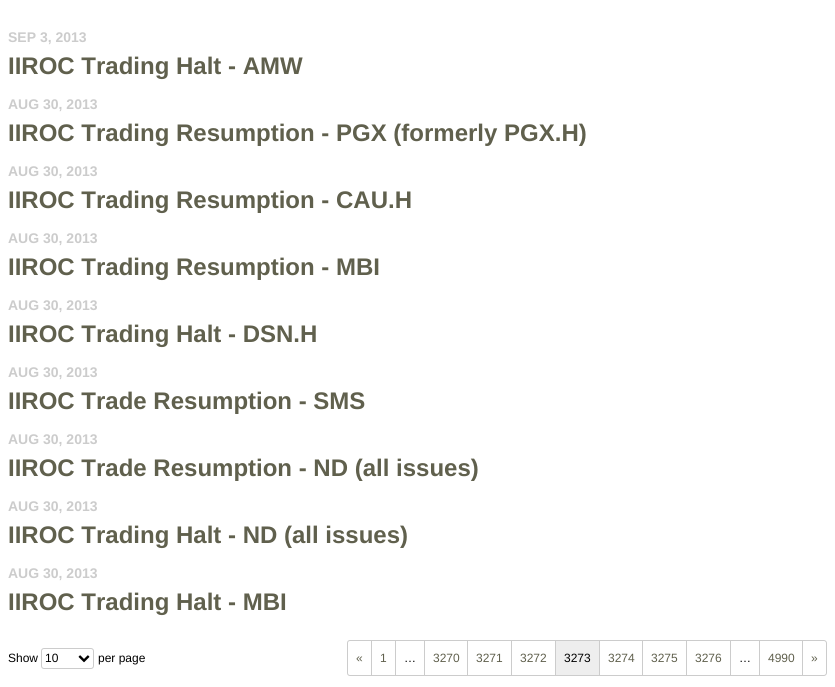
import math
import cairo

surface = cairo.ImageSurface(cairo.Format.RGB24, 835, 687)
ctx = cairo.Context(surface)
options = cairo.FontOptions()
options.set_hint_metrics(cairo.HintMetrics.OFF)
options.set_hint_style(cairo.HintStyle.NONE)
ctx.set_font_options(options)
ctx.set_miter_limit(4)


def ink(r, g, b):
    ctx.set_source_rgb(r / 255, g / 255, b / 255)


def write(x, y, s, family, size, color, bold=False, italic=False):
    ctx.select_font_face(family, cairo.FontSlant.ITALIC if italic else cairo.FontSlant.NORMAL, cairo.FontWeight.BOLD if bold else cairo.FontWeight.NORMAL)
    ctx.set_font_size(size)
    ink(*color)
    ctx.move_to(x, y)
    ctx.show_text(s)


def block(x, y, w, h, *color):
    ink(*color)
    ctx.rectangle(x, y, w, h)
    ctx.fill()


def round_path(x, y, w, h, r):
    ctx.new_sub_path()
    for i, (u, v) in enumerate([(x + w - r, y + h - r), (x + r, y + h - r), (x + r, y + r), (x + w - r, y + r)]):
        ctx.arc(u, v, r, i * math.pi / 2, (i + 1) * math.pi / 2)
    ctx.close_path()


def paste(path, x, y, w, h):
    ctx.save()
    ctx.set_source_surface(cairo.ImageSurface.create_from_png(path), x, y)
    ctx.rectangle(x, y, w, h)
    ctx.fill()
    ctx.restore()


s1 = dict(family="Liberation Sans", size=14, color=(204, 204, 204), bold=True)
s2 = dict(family="Liberation Sans", size=24, color=(96, 96, 77), bold=True)
s3 = dict(family="Liberation Sans", size=12, color=(0, 0, 0))
s4 = dict(family="Liberation Sans", size=12, color=(96, 96, 77))

ink(255, 255, 255)
ctx.paint()
write(8, 42, "SEP 3, 2013", **s1)
write(8, 74, "IIROC Trading Halt - AMW", **s2)
write(8, 109, "AUG 30, 2013", **s1)
write(8, 141, "IIROC Trading Resumption - PGX (formerly PGX.H)", **s2)
write(8, 176, "AUG 30, 2013", **s1)
write(8, 208, "IIROC Trading Resumption - CAU.H", **s2)
write(8, 243, "AUG 30, 2013", **s1)
write(8, 275, "IIROC Trading Resumption - MBI", **s2)
write(8, 310, "AUG 30, 2013", **s1)
write(8, 342, "IIROC Trading Halt - DSN.H", **s2)
write(8, 377, "AUG 30, 2013", **s1)
write(8, 409, "IIROC Trade Resumption - SMS", **s2)
write(8, 444, "AUG 30, 2013", **s1)
write(8, 476, "IIROC Trade Resumption - ND (all issues)", **s2)
write(8, 511, "AUG 30, 2013", **s1)
write(8, 543, "IIROC Trading Halt - ND (all issues)", **s2)
write(8, 578, "AUG 30, 2013", **s1)
write(8, 610, "IIROC Trading Halt - MBI", **s2)
write(8, 662, "Show", **s3)
round_path(41.5, 648.5, 52, 20, 2.5)
ink(204, 204, 204)
ctx.set_line_width(1)
ctx.stroke()
write(45, 662, "10", **s3)
paste("pic1.png", 78, 655, 12, 8)
write(98, 662, "per page", **s3)
ctx.new_path()
ctx.move_to(350, 640.5)
ctx.line_to(371.5, 640.5)
ctx.line_to(371.5, 675.5)
ctx.line_to(350, 675.5)
ctx.curve_to(348.5, 675.5, 347.5, 674.5, 347.5, 673)
ctx.line_to(347.5, 643)
ctx.curve_to(347.5, 641.5, 348.5, 640.5, 350, 640.5)
ctx.close_path()
ink(204, 204, 204)
ctx.stroke()
write(356, 662, "«", **s4)
block(372, 640, 431, 1, 204, 204, 204)
block(395, 640, 1, 36, 204, 204, 204)
block(372, 675, 24, 1, 204, 204, 204)
write(380, 662, "1", **s4)
block(424, 640, 1, 36, 204, 204, 204)
block(396, 675, 29, 1, 204, 204, 204)
write(404, 662, "…", **s3)
block(467, 640, 1, 36, 204, 204, 204)
block(425, 675, 43, 1, 204, 204, 204)
write(433, 662, "3270", **s4)
block(511, 640, 1, 36, 204, 204, 204)
block(468, 675, 44, 1, 204, 204, 204)
write(476, 662, "3271", **s4)
block(555, 640, 1, 36, 204, 204, 204)
block(512, 675, 44, 1, 204, 204, 204)
write(520, 662, "3272", **s4)
block(556, 641, 43, 34, 238, 238, 238)
block(599, 640, 1, 36, 204, 204, 204)
block(556, 675, 44, 1, 204, 204, 204)
write(564, 662, "3273", **s3)
block(642, 640, 1, 36, 204, 204, 204)
block(600, 675, 43, 1, 204, 204, 204)
write(608, 662, "3274", **s4)
block(686, 640, 1, 36, 204, 204, 204)
block(643, 675, 44, 1, 204, 204, 204)
write(651, 662, "3275", **s4)
block(730, 640, 1, 36, 204, 204, 204)
block(687, 675, 44, 1, 204, 204, 204)
write(695, 662, "3276", **s4)
block(759, 640, 1, 36, 204, 204, 204)
block(731, 675, 29, 1, 204, 204, 204)
write(739, 662, "…", **s3)
block(802, 640, 1, 36, 204, 204, 204)
block(760, 675, 43, 1, 204, 204, 204)
write(768, 662, "4990", **s4)
ink(204, 204, 204)
ctx.set_fill_rule(cairo.FillRule.EVEN_ODD)
ctx.new_path()
ctx.move_to(803, 640)
ctx.line_to(824, 640)
ctx.curve_to(825.5, 640, 827, 641.5, 827, 643)
ctx.line_to(827, 673)
ctx.curve_to(827, 674.5, 825.5, 676, 824, 676)
ctx.line_to(803, 676)
ctx.close_path()
ctx.move_to(803, 641)
ctx.line_to(824, 641)
ctx.curve_to(825, 641, 826, 642, 826, 643)
ctx.line_to(826, 673)
ctx.curve_to(826, 674, 825, 675, 824, 675)
ctx.line_to(803, 675)
ctx.close_path()
ctx.fill()
write(811, 662, "»", **s4)
surface.write_to_png("screenshot.png")
